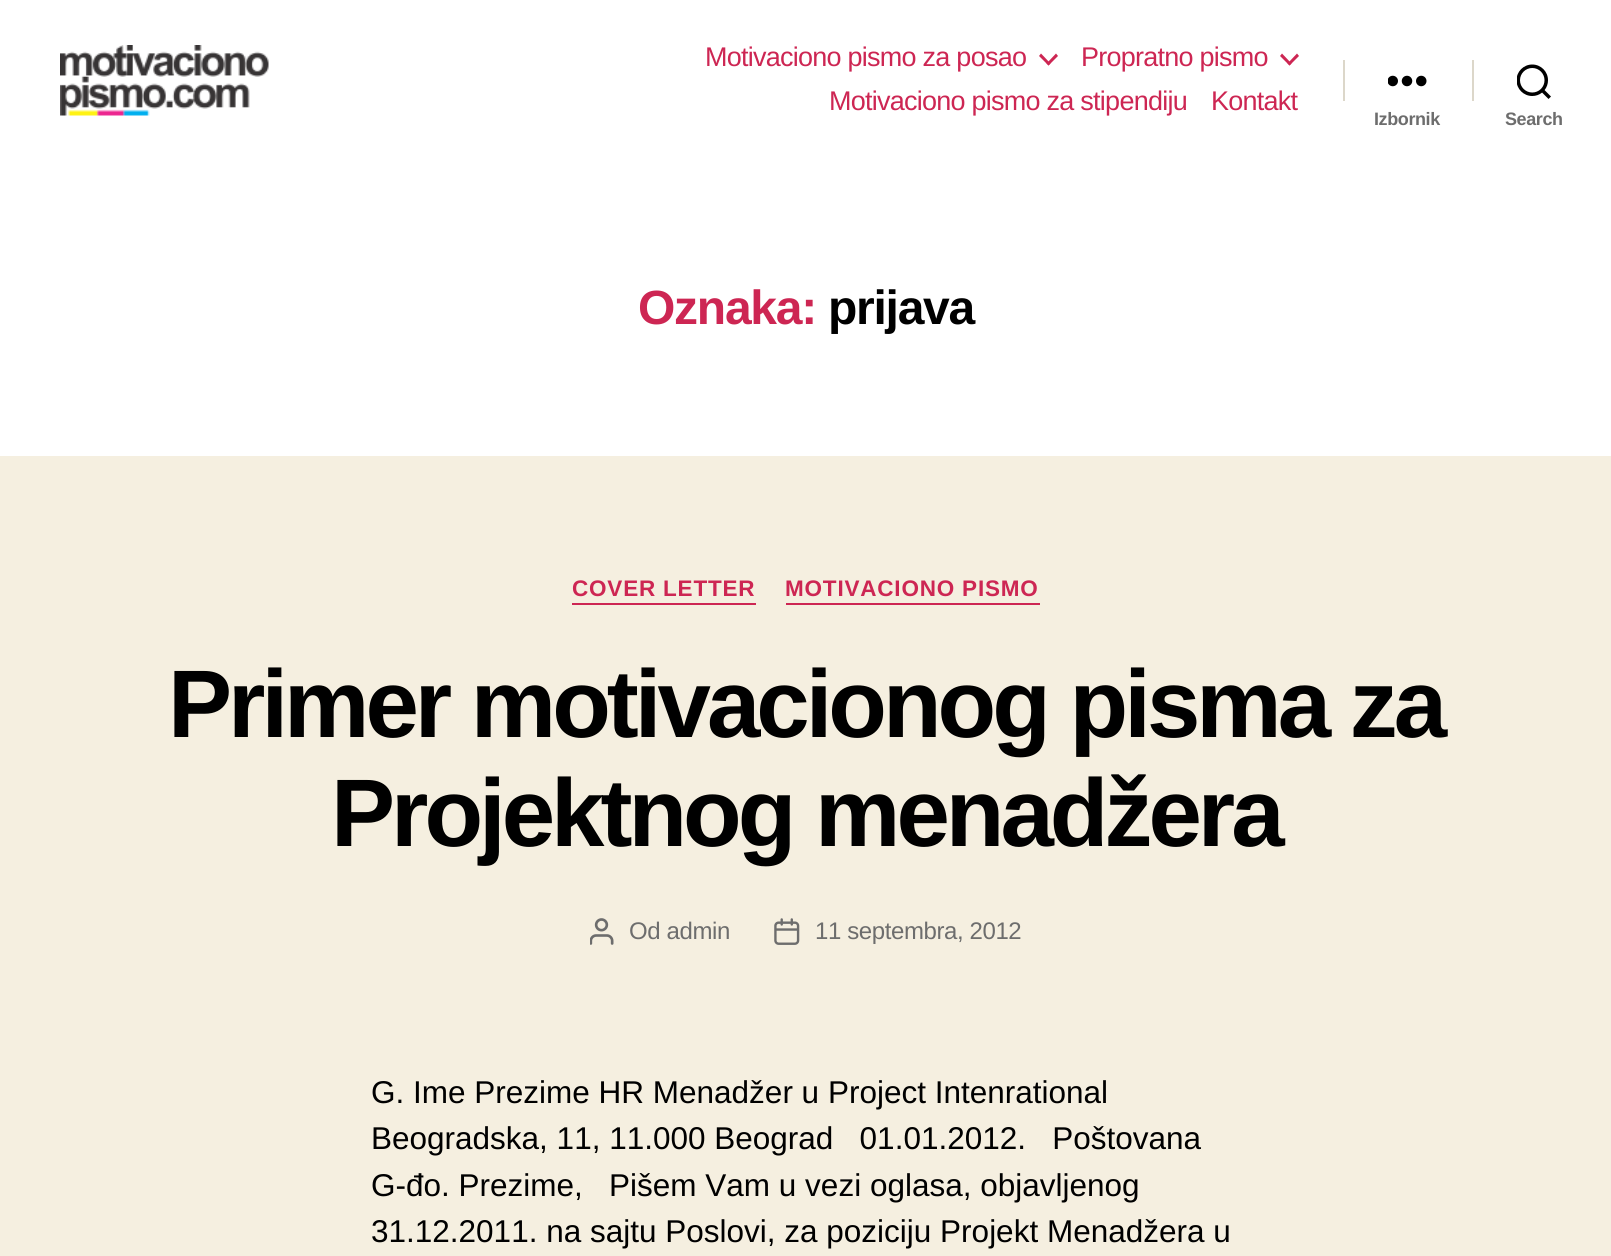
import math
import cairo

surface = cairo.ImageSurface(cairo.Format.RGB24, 1611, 1256)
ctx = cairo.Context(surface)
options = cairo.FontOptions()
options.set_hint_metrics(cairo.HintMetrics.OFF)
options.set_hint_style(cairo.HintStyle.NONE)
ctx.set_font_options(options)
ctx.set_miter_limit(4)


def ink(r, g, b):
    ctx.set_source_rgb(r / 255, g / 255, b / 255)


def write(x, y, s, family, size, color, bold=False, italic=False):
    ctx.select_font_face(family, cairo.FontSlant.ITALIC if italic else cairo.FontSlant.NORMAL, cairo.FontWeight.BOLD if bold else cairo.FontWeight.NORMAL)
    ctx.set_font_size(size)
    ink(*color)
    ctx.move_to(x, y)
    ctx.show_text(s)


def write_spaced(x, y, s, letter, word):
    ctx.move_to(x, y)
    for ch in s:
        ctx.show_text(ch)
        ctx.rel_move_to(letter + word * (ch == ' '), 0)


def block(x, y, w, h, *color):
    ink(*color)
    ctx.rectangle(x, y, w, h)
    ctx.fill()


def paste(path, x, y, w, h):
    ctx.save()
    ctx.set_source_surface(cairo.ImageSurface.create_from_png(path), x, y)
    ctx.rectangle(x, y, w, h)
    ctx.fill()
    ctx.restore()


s1 = dict(family="Liberation Sans", size=31.5, color=(0, 0, 0))

ink(245, 239, 224)
ctx.paint()
block(0, 0, 1611, 456, 255, 255, 255)
paste("pic1.png", 60, 45, 209, 71)
ctx.select_font_face("Liberation Sans")
ctx.set_font_size(27)
ink(205, 38, 83)
write_spaced(705, 66, "Motivaciono pismo za posao", -0.75, 0)
ctx.new_path()
ctx.move_to(1039, 56)
ctx.line_to(1041, 53.5)
ctx.line_to(1050.5, 63.5)
ctx.line_to(1048.5, 65.5)
ctx.close_path()
ctx.fill()
ctx.new_path()
ctx.move_to(1046.5, 63.5)
ctx.line_to(1056, 53.5)
ctx.line_to(1058, 56)
ctx.line_to(1048.5, 65.5)
ctx.close_path()
ctx.fill()
write_spaced(1081, 66, "Propratno pismo", -0.75, 0)
ctx.new_path()
ctx.move_to(1280, 56)
ctx.line_to(1282, 53.5)
ctx.line_to(1291.5, 63.5)
ctx.line_to(1289.5, 65.5)
ctx.close_path()
ctx.fill()
ctx.new_path()
ctx.move_to(1287.5, 63.5)
ctx.line_to(1297, 53.5)
ctx.line_to(1299, 56)
ctx.line_to(1289.5, 65.5)
ctx.close_path()
ctx.fill()
write_spaced(829, 110, "Motivaciono pismo za stipendiju", -0.75, 0)
write_spaced(1211, 110, "Kontakt", -0.75, 0)
block(1343, 60, 2, 41, 220, 215, 202)
paste("pic2.png", 1388, 75, 39, 12)
ctx.select_font_face("Liberation Sans", cairo.FontSlant.NORMAL, cairo.FontWeight.BOLD)
ctx.set_font_size(18)
ink(109, 109, 109)
write_spaced(1374, 125, "Izbornik", -0.4, 0)
block(1472, 60, 2, 41, 220, 215, 202)
paste("pic3.png", 1517, 64, 34, 35)
ink(109, 109, 109)
write_spaced(1505, 125, "Search", -0.4, 0)
ctx.set_font_size(48)
ink(205, 38, 83)
write_spaced(638, 324, "Oznaka:", -1.25, 0)
ink(0, 0, 0)
write_spaced(828, 324, "prijava", -1.25, 0)
block(572, 603, 184, 2, 205, 38, 83)
ctx.set_font_size(22.5)
write_spaced(572, 596, "COVER LETTER", 0.8, 0)
block(786, 603, 254, 2, 205, 38, 83)
write_spaced(785, 596, "MOTIVACIONO PISMO", 0.8, 0)
ctx.set_font_size(96)
ink(0, 0, 0)
write_spaced(168, 737, "Primer motivacionog pisma za", -4, 0)
write_spaced(331, 846, "Projektnog menadžera", -4, 0)
paste("pic4.png", 590, 918, 24, 27)
ctx.select_font_face("Liberation Sans")
ctx.set_font_size(24)
ink(109, 109, 109)
write_spaced(629, 939, "Od admin", -0.4, 0)
paste("pic5.png", 774, 918, 26, 27)
write_spaced(815, 939, "11 septembra, 2012", -0.4, 0)
write(371, 1103, "G. Ime Prezime HR Menadžer u Project Intenrational", **s1)
write(371, 1149, "Beogradska, 11, 11.000 Beograd   01.01.2012.   Poštovana", **s1)
write(371, 1196, "G-đo. Prezime,   Pišem Vam u vezi oglasa, objavljenog", **s1)
write(371, 1242, "31.12.2011. na sajtu Poslovi, za poziciju Projekt Menadžera u", **s1)
surface.write_to_png("screenshot.png")
